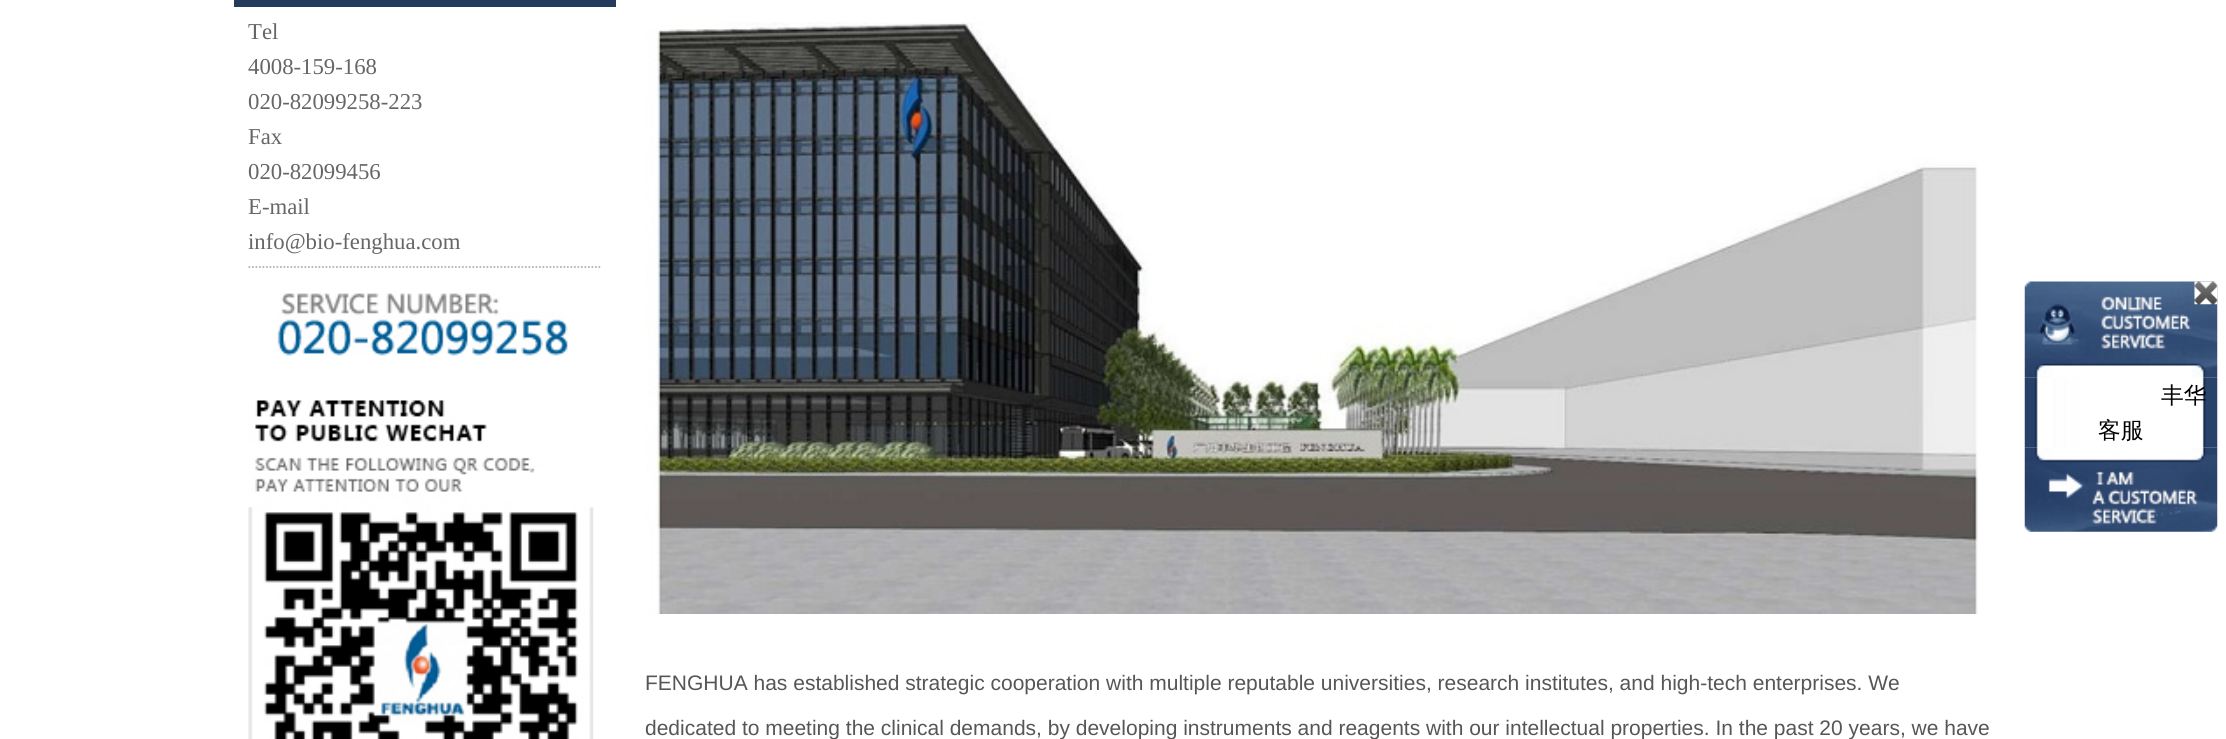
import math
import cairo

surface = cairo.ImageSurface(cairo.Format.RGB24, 2226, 739)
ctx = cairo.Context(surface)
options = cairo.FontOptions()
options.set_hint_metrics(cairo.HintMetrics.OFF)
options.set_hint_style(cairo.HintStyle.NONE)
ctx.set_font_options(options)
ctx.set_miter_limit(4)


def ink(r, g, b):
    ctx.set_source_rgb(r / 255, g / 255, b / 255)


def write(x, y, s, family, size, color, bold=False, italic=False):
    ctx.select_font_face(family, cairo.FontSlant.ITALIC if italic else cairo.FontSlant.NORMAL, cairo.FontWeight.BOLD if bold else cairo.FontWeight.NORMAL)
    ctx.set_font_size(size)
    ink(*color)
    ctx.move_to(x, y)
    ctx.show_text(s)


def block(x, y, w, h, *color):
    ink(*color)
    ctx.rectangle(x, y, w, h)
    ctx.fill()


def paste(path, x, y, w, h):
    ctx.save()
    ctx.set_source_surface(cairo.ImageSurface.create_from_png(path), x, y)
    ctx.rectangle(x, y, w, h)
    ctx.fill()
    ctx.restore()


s1 = dict(family="Liberation Serif", size=22.75, color=(102, 102, 102))
s2 = dict(family="Liberation Sans", size=21, color=(86, 86, 86))
s3 = dict(family="WenQuanYi Zen Hei Medium", size=22.75, color=(0, 0, 0))

ink(255, 255, 255)
ctx.paint()
block(234, 0, 382, 7, 36, 59, 91)
ctx.new_path()
ctx.move_to(248.5, 267)
ctx.line_to(602, 267)
ink(179, 179, 179)
ctx.set_line_width(1.8)
ctx.set_dash([1.75, 1.75])
ctx.stroke()
write(248, 39, "Tel", **s1)
write(248, 74, "4008-159-168", **s1)
write(248, 109, "020-82099258-223", **s1)
write(248, 144, "Fax", **s1)
write(248, 179, "020-82099456", **s1)
write(248, 214, "E-mail", **s1)
write(248, 249, "info@bio-fenghua.com", **s1)
paste("pic1.png", 277, 293, 291, 63)
paste("pic2.png", 248, 400, 346, 339)
paste("pic3.png", 646, 22, 1332, 592)
write(645, 690, "FENGHUA has established strategic cooperation with multiple reputable universities, research institutes, and high-tech enterprises. We", **s2)
write(645, 735, "dedicated to meeting the clinical demands, by developing instruments and reagents with our intellectual properties. In the past 20 years, we have", **s2)
paste("pic6.png", 2024, 377, 194, 71)
paste("pic4.png", 2024, 281, 194, 97)
paste("pic5.png", 2194, 281, 24, 24)
write(2161, 403, "丰华", **s3)
write(2098, 438, "客服", **s3)
paste("pic7.png", 2024, 447, 194, 85)
surface.write_to_png("screenshot.png")
